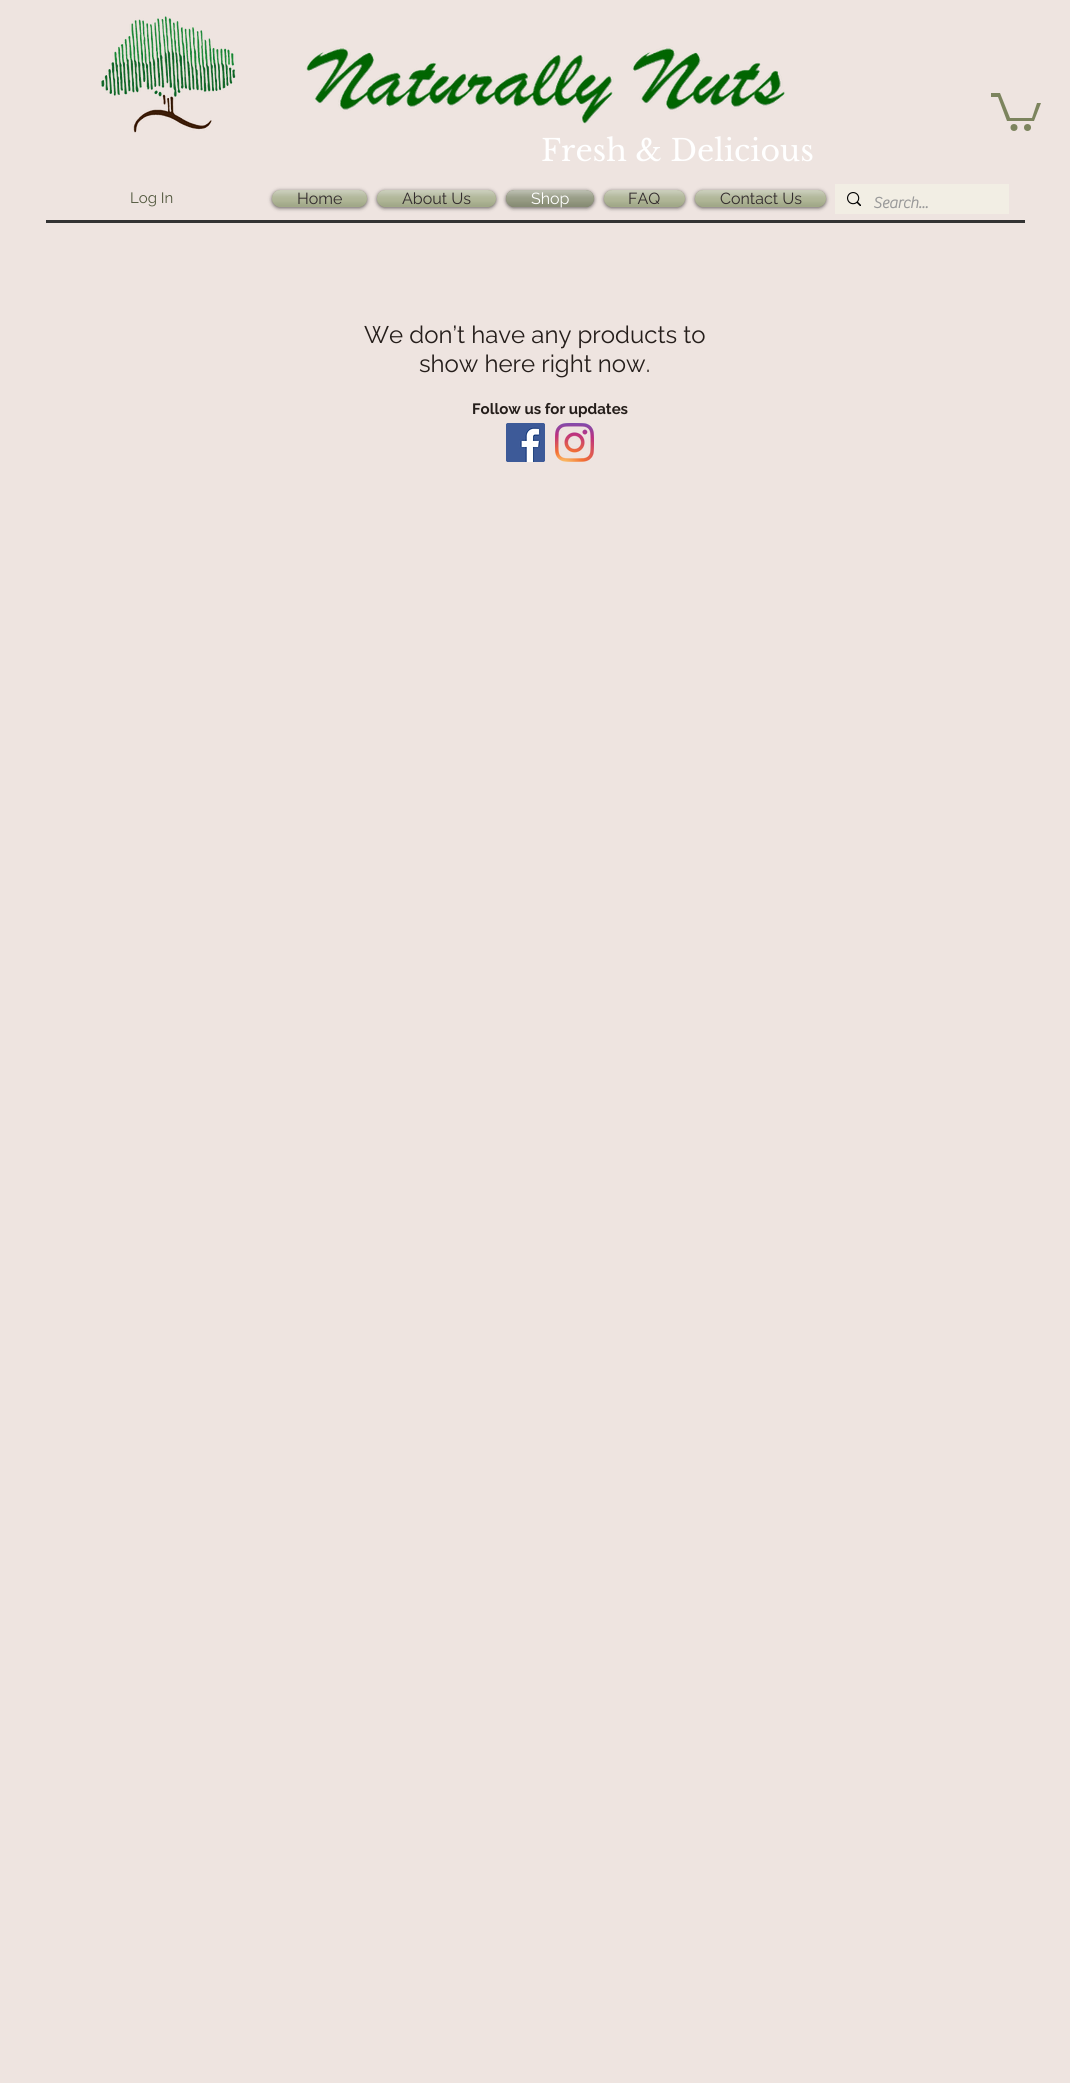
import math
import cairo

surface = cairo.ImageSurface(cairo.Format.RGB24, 1070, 2083)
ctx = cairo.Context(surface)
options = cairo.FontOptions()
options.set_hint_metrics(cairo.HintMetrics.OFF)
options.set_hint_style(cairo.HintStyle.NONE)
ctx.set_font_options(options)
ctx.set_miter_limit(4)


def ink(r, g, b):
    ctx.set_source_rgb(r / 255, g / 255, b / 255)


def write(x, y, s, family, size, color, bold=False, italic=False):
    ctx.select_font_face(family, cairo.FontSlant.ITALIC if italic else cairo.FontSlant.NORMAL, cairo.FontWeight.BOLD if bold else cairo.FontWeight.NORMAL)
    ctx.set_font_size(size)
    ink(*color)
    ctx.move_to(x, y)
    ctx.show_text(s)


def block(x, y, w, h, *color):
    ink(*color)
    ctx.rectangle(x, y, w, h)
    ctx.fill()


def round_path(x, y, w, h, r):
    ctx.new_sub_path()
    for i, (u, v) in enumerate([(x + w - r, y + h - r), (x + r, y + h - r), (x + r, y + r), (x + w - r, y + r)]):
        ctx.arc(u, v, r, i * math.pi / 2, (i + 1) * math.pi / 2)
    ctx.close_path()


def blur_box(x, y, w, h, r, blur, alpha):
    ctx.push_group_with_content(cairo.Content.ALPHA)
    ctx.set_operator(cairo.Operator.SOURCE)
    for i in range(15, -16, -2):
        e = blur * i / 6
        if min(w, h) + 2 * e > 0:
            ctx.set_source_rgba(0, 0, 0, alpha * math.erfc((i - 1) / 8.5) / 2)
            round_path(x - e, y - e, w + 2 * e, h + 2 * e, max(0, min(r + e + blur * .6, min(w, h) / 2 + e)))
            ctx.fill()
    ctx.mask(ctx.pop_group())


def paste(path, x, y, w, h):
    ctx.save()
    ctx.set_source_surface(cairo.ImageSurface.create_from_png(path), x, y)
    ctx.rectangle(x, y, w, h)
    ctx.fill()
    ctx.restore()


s1 = dict(family="Libre Baskerville", size=30, color=(255, 255, 255))
s2 = dict(family="Raleway", size=15, color=(82, 88, 62))
s3 = dict(family="Raleway", size=16, color=(51, 44, 46))
s4 = dict(family="Raleway", size=16, color=(255, 255, 255))
s5 = dict(family="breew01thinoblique", size=16, color=(153, 153, 153), bold=True)
s6 = dict(family="Raleway", size=24, color=(37, 30, 27))
s7 = dict(family="Raleway", size=15, color=(37, 30, 27), bold=True)

ink(238, 228, 224)
ctx.paint()
paste("pic1.png", 101, 16, 135, 117)
paste("pic2.png", 305, 46, 480, 78)
ink(124, 132, 94)
ctx.new_path()
ctx.move_to(1041, 103)
ctx.line_to(1034, 121)
ctx.line_to(1007, 121)
ctx.line_to(998, 97)
ctx.line_to(991, 97)
ctx.line_to(991, 93)
ctx.line_to(1000, 93)
ctx.line_to(1010, 118)
ctx.line_to(1032, 118)
ctx.line_to(1037, 103)
ctx.fill()
ctx.arc(1027.5, 127.5, 3.5, 0, 2 * math.pi)
ctx.fill()
ctx.arc(1014, 127.5, 3.5, 0, 2 * math.pi)
ctx.fill()
write(541, 161, "Fresh & Delicious", **s1)
write(130, 203, "Log In", **s2)
ink(0, 0, 0)
blur_box(272, 191, 95, 17, 8.5, 2, 0.6)
ink(165, 176, 125)
round_path(272, 190, 95, 17, 8.5)
ctx.fill()
paste("pic3.png", 272, 190, 95, 17)
paste("pic4.png", 272, 190, 95, 17)
write(297, 204, "Home", **s3)
ink(0, 0, 0)
blur_box(377, 191, 119, 17, 8.5, 2, 0.6)
ink(165, 176, 125)
round_path(377, 190, 119, 17, 8.5)
ctx.fill()
paste("pic5.png", 377, 190, 119, 17)
paste("pic6.png", 377, 190, 119, 17)
write(402, 204, "About Us", **s3)
ink(0, 0, 0)
blur_box(506, 191, 88, 17, 8.5, 2, 0.6)
ink(124, 132, 94)
round_path(506, 190, 88, 17, 8.5)
ctx.fill()
paste("pic7.png", 506, 190, 88, 17)
paste("pic8.png", 506, 190, 88, 17)
write(531, 204, "Shop", **s4)
ink(0, 0, 0)
blur_box(604, 191, 81, 17, 8.5, 2, 0.6)
ink(165, 176, 125)
round_path(604, 190, 81, 17, 8.5)
ctx.fill()
paste("pic9.png", 604, 190, 81, 17)
paste("pic10.png", 604, 190, 81, 17)
write(628, 204, "FAQ", **s3)
ink(0, 0, 0)
blur_box(695, 191, 131, 17, 8.5, 2, 0.6)
ink(165, 176, 125)
round_path(695, 190, 131, 17, 8.5)
ctx.fill()
paste("pic11.png", 695, 190, 131, 17)
paste("pic12.png", 695, 190, 131, 17)
write(720, 204, "Contact Us", **s3)
block(835, 184, 174, 30, 242, 238, 228)
paste("pic13.png", 847, 192, 14, 14)
write(873, 208, "Search...", **s5)
block(46, 220, 979, 3, 51, 51, 51)
write(364, 343, "We don’t have any products to", **s6)
write(419, 372, "show here right now.", **s6)
write(472, 414, "Follow us for updates", **s7)
paste("pic14.png", 506, 423, 39, 39)
paste("pic15.png", 555, 423, 39, 39)
surface.write_to_png("screenshot.png")
